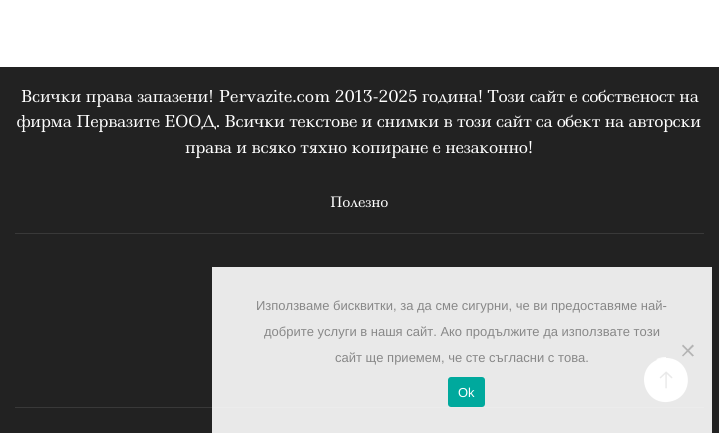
import math
import cairo

surface = cairo.ImageSurface(cairo.Format.RGB24, 719, 433)
ctx = cairo.Context(surface)
options = cairo.FontOptions()
options.set_hint_metrics(cairo.HintMetrics.OFF)
options.set_hint_style(cairo.HintStyle.NONE)
ctx.set_font_options(options)
ctx.set_miter_limit(4)


def ink(r, g, b):
    ctx.set_source_rgb(r / 255, g / 255, b / 255)


def write(x, y, s, family, size, color, bold=False, italic=False):
    ctx.select_font_face(family, cairo.FontSlant.ITALIC if italic else cairo.FontSlant.NORMAL, cairo.FontWeight.BOLD if bold else cairo.FontWeight.NORMAL)
    ctx.set_font_size(size)
    ink(*color)
    ctx.move_to(x, y)
    ctx.show_text(s)


def block(x, y, w, h, *color):
    ink(*color)
    ctx.rectangle(x, y, w, h)
    ctx.fill()


def round_path(x, y, w, h, r):
    ctx.new_sub_path()
    for i, (u, v) in enumerate([(x + w - r, y + h - r), (x + r, y + h - r), (x + r, y + r), (x + w - r, y + r)]):
        ctx.arc(u, v, r, i * math.pi / 2, (i + 1) * math.pi / 2)
    ctx.close_path()


def paste(path, x, y, w, h):
    ctx.save()
    ctx.set_source_surface(cairo.ImageSurface.create_from_png(path), x, y)
    ctx.rectangle(x, y, w, h)
    ctx.fill()
    ctx.restore()


s1 = dict(family="Ledger", size=16, color=(255, 255, 255))
s2 = dict(family="Ledger", size=14, color=(255, 255, 255))
s3 = dict(family="Liberation Sans", size=13, color=(136, 136, 136))
s4 = dict(family="Liberation Sans", size=13, color=(255, 255, 255))

ink(255, 255, 255)
ctx.paint()
block(0, 67, 719, 366, 34, 34, 34)
write(21, 102, "Всички права запазени! Pervazite.com 2013-2025 година! Този сайт е собственост на", **s1)
write(17, 127, "фирма Первазите ЕООД. Всички текстове и снимки в този сайт са обект на авторски", **s1)
write(185, 153, "права и всяко тяхно копиране е незаконно!", **s1)
block(15, 233, 689, 1, 57, 57, 57)
write(330, 207, "Полезно", **s2)
block(15, 407, 689, 1, 57, 57, 57)
ink(255, 255, 255)
ctx.new_path()
ctx.arc(666, 380, 22.5, 0, 2 * math.pi)
ctx.fill_preserve()
ink(225, 225, 225)
ctx.set_line_width(1)
ctx.stroke()
ctx.new_path()
ctx.move_to(666, 357)
ctx.curve_to(693.5, 357, 697.5, 397, 670.5, 402.5)
ctx.curve_to(643.5, 408, 632, 370, 656.5, 359)
ink(34, 34, 34)
ctx.set_line_width(1.9)
ctx.stroke()
paste("pic1.png", 659, 371, 14, 18)
ctx.set_source_rgba(1, 1, 1, 0.9)
ctx.rectangle(212, 267, 500, 166)
ctx.fill()
write(256, 310, "Използваме бисквитки, за да сме сигурни, че ви предоставяме най-", **s3)
write(264, 336, "добрите услуги в нашя сайт. Ако продължите да използвате този", **s3)
write(335, 362, "сайт ще приемем, че сте съгласни с това.", **s3)
ink(180, 180, 180)
ctx.new_path()
ctx.move_to(692.5, 344.5)
ctx.line_to(694, 346)
ctx.line_to(683, 356.5)
ctx.line_to(682, 355.5)
ctx.close_path()
ctx.fill()
ctx.new_path()
ctx.move_to(682, 346)
ctx.line_to(683, 344.5)
ctx.line_to(694, 355.5)
ctx.line_to(692.5, 356.5)
ctx.close_path()
ctx.fill()
ink(0, 169, 157)
round_path(448, 377, 37, 30, 3)
ctx.fill()
write(458, 397, "Ok", **s4)
surface.write_to_png("screenshot.png")
